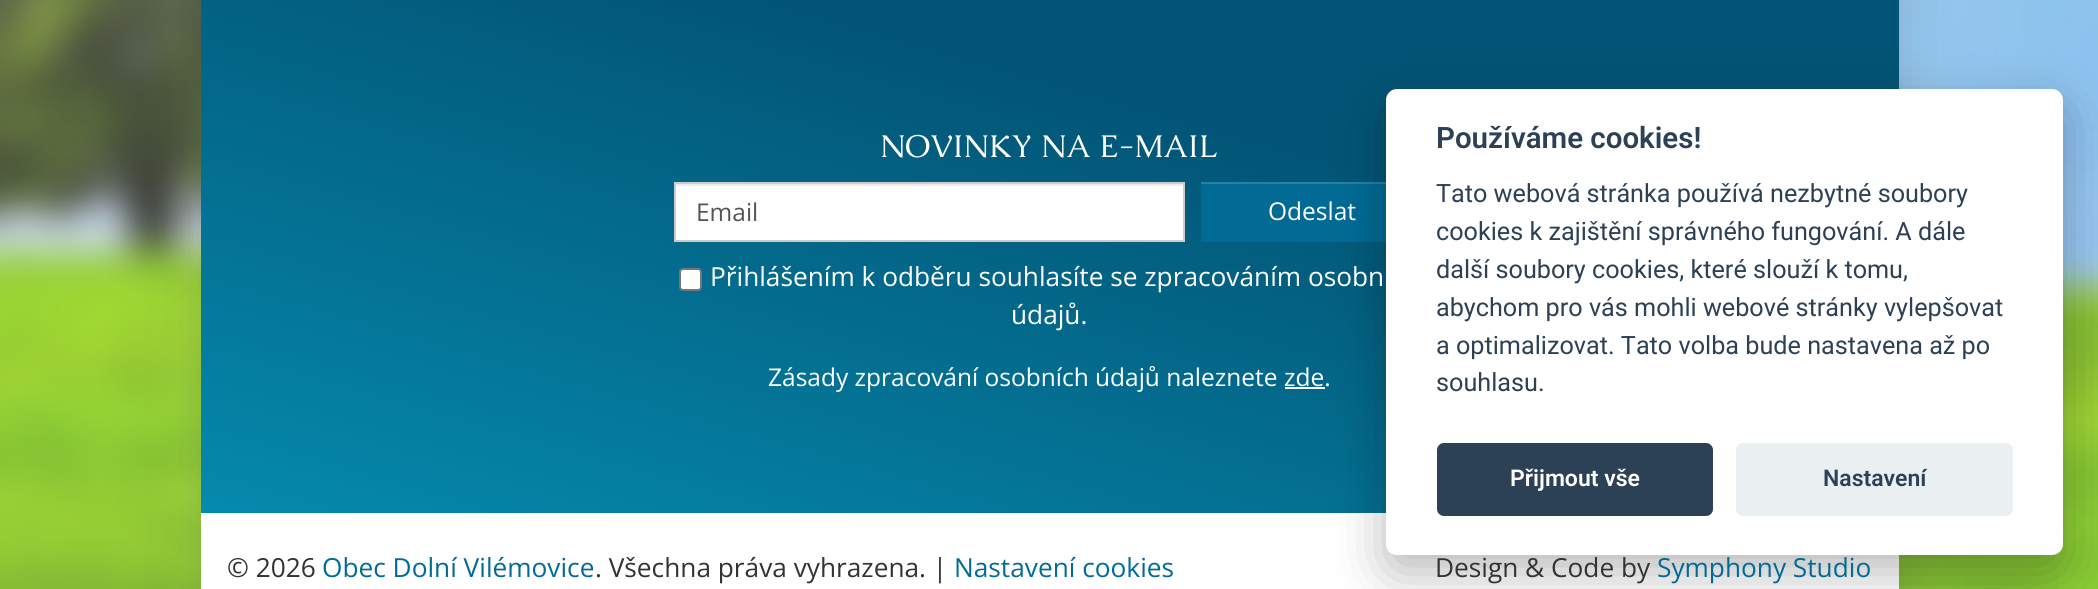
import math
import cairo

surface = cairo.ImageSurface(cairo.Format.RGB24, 2098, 589)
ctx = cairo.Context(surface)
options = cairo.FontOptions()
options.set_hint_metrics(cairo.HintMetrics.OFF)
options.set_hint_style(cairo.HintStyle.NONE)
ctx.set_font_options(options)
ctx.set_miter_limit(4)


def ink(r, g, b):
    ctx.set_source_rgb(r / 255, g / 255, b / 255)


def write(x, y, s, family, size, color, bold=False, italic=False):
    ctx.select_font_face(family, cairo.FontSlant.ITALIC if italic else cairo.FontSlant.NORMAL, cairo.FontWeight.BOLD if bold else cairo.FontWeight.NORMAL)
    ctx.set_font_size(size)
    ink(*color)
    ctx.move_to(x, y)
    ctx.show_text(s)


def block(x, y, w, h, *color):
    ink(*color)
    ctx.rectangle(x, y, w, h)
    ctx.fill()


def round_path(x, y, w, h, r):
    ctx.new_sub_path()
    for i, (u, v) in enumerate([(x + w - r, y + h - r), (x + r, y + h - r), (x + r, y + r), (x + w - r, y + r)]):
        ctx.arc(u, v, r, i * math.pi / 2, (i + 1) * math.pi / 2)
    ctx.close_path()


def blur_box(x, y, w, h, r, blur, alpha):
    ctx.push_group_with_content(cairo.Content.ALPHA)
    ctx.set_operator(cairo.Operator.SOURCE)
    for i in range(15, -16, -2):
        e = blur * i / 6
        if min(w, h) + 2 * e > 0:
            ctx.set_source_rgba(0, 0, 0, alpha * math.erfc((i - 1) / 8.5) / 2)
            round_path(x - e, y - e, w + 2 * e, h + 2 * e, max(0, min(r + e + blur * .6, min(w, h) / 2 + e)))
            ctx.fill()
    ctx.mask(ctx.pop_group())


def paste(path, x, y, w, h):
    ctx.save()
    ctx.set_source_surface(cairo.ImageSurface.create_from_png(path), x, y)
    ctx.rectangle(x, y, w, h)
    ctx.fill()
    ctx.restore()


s1 = dict(family="Roboto SemiBold", size=29.5, color=(45, 65, 86))
s2 = dict(family="Roboto", size=25.2, color=(45, 65, 86))
s3 = dict(family="Roboto SemiBold", size=23, color=(255, 255, 255))
s4 = dict(family="Roboto SemiBold", size=23, color=(45, 65, 86))
s5 = dict(family="Caudex", size=31.5, color=(255, 255, 255))
s6 = dict(family="Open Sans", size=24.5, color=(85, 85, 85))
s7 = dict(family="Open Sans", size=24.5, color=(255, 255, 255))
s8 = dict(family="Open Sans", size=26.25, color=(255, 255, 255))
s9 = dict(family="Open Sans", size=26.25, color=(51, 51, 51))
s10 = dict(family="Open Sans", size=26.25, color=(1, 107, 149))

ink(255, 255, 255)
ctx.paint()
paste("pic1.png", 0, 0, 2098, 589)
ink(95, 95, 95)
blur_box(201, -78, 1698, 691, 0, 26, 0.26)
block(201, 513, 1698, 76, 255, 255, 255)
gradient = cairo.LinearGradient(827, 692, 1273, -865)
gradient.add_color_stop_rgba(0, 0.02, 0.541, 0.678, 1)
gradient.add_color_stop_rgba(0.4, 0.008, 0.333, 0.463, 1)
ctx.set_source(gradient)
ctx.rectangle(201, 0, 1698, 513)
ctx.fill()
block(1201, 184, 185, 58, 1, 107, 149)
block(1201, 182, 185, 2, 39, 129, 165)
block(1285, 387, 40, 2, 255, 255, 255)
ink(2, 2, 3)
blur_box(1386, 107, 677, 465, 11, 26, 0.28)
ink(255, 255, 255)
round_path(1386, 89, 677, 466, 11)
ctx.fill()
write(1436, 148, "Používáme cookies!", **s1)
write(1436, 202, "Tato webová stránka používá nezbytné soubory", **s2)
write(1436, 240, "cookies k zajištění správného fungování. A dále", **s2)
write(1436, 278, "další soubory cookies, které slouží k tomu,", **s2)
write(1436, 316, "abychom pro vás mohli webové stránky vylepšovat", **s2)
write(1436, 354, "a optimalizovat. Tato volba bude nastavena až po", **s2)
write(1436, 391, "souhlasu.", **s2)
round_path(1437, 443, 276, 73, 7)
ctx.fill()
write(1510, 486, "Přijmout vše", **s3)
ink(234, 239, 242)
round_path(1736, 443, 277, 73, 7)
ctx.fill()
write(1823, 486, "Nastavení", **s4)
write(880, 157, "NOVINKY NA E-MAIL", **s5)
block(676, 186, 507, 54, 255, 255, 255)
block(676, 184, 507, 2, 236, 236, 236)
ctx.rectangle(675, 183, 509, 58)
ink(204, 204, 204)
ctx.stroke()
write(696, 221, "Email", **s6)
write(1268, 220, "Odeslat", **s7)
round_path(680, 269, 21, 21, 3)
ctx.fill_preserve()
ink(118, 118, 118)
ctx.stroke()
write(710, 286, "Přihlášením k odběru souhlasíte se zpracováním osobn", **s8)
write(1011, 324, "údajů.", **s8)
write(768, 386, "Zásady zpracování osobních údajů naleznete zde.", **s7)
write(227, 577, "© 2026", **s9)
write(322, 577, "Obec Dolní Vilémovice", **s10)
write(595, 577, ". Všechna práva vyhrazena. |", **s9)
write(954, 577, "Nastavení cookies", **s10)
write(1435, 577, "Design & Code by", **s9)
write(1657, 577, "Symphony Studio", **s10)
surface.write_to_png("screenshot.png")
